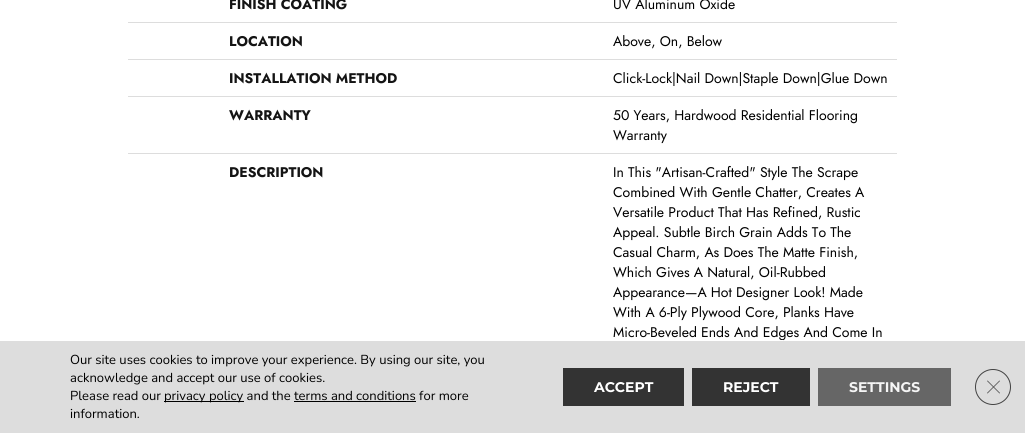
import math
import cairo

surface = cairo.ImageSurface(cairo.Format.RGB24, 1025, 433)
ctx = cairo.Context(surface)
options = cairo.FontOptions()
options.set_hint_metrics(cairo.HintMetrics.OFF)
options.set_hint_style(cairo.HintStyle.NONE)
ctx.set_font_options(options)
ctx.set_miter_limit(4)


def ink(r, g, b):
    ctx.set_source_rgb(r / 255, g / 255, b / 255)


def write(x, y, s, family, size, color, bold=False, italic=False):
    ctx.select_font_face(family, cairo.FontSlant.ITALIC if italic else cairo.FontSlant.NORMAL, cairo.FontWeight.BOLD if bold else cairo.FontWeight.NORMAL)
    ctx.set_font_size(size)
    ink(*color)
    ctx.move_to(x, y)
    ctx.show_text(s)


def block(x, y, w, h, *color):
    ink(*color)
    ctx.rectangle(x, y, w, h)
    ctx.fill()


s1 = dict(family="Jost", size=14, color=(20, 20, 20), bold=True)
s2 = dict(family="Jost", size=14, color=(0, 0, 0))
s3 = dict(family="Nunito", size=13, color=(0, 0, 0))
s4 = dict(family="Montserrat Thin", size=14, color=(255, 255, 255))
s5 = dict(family="Montserrat Thin", size=14, color=(245, 245, 245))

ink(255, 255, 255)
ctx.paint()
write(229, 9, "FINISH COATING", **s1)
write(613, 9, "UV Aluminum Oxide", **s2)
write(229, 46, "LOCATION", **s1)
block(128, 22, 769, 1, 221, 221, 221)
write(613, 46, "Above, On, Below", **s2)
write(229, 83, "INSTALLATION METHOD", **s1)
block(128, 59, 769, 1, 221, 221, 221)
write(613, 83, "Click-Lock|Nail Down|Staple Down|Glue Down", **s2)
write(229, 120, "WARRANTY", **s1)
block(128, 96, 769, 1, 221, 221, 221)
write(613, 120, "50 Years, Hardwood Residential Flooring", **s2)
write(613, 140, "Warranty", **s2)
write(229, 177, "DESCRIPTION", **s1)
block(128, 153, 769, 1, 221, 221, 221)
write(613, 177, "In This \"Artisan-Crafted\" Style The Scrape", **s2)
write(613, 197, "Combined With Gentle Chatter, Creates A", **s2)
write(613, 217, "Versatile Product That Has Refined, Rustic", **s2)
write(613, 237, "Appeal. Subtle Birch Grain Adds To The", **s2)
write(613, 257, "Casual Charm, As Does The Matte Finish,", **s2)
write(613, 277, "Which Gives A Natural, Oil-Rubbed", **s2)
write(613, 297, "Appearance—A Hot Designer Look! Made", **s2)
write(613, 317, "With A 6-Ply Plywood Core, Planks Have", **s2)
write(613, 337, "Micro-Beveled Ends And Edges And Come In", **s2)
block(0, 341, 1025, 92, 221, 221, 221)
block(780, 340, 3, 1, 255, 255, 255)
write(70, 364, "Our site uses cookies to improve your experience. By using our site, you", **s3)
write(70, 382, "acknowledge and accept our use of cookies.", **s3)
write(70, 400, "Please read our", **s3)
block(164, 401, 80, 1, 0, 0, 0)
write(164, 400, "privacy policy and the terms and conditions for more", **s3)
block(294, 401, 122, 1, 0, 0, 0)
write(70, 418, "information.", **s3)
block(563, 368, 121, 38, 51, 51, 51)
write(594, 392, "ACCEPT", **s4)
block(692, 368, 118, 38, 51, 51, 51)
write(723, 392, "REJECT", **s4)
block(818, 368, 133, 38, 102, 102, 102)
write(849, 392, "SETTINGS", **s5)
ctx.new_path()
ctx.arc(993, 387, 17.5, 0, 2 * math.pi)
ink(66, 66, 66)
ctx.set_line_width(1)
ctx.stroke()
ctx.new_path()
ctx.move_to(999.5, 380.5)
ctx.line_to(1000, 381)
ctx.line_to(987.5, 393.5)
ctx.line_to(987, 393)
ctx.close_path()
ctx.fill()
ctx.new_path()
ctx.move_to(987, 381)
ctx.line_to(987.5, 380.5)
ctx.line_to(1000, 393)
ctx.line_to(999.5, 393.5)
ctx.close_path()
ctx.fill()
surface.write_to_png("screenshot.png")
